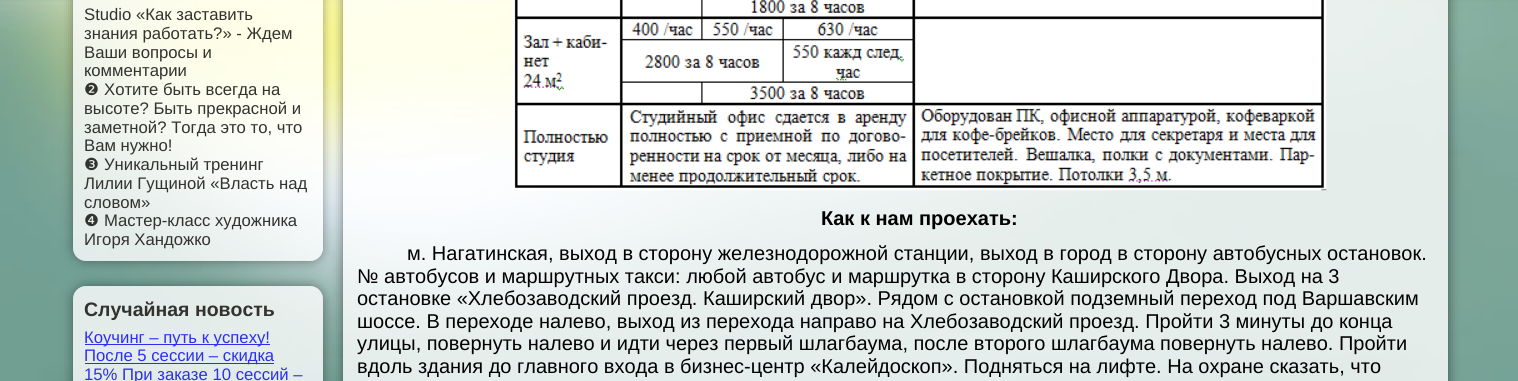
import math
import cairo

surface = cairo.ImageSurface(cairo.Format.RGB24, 1518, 381)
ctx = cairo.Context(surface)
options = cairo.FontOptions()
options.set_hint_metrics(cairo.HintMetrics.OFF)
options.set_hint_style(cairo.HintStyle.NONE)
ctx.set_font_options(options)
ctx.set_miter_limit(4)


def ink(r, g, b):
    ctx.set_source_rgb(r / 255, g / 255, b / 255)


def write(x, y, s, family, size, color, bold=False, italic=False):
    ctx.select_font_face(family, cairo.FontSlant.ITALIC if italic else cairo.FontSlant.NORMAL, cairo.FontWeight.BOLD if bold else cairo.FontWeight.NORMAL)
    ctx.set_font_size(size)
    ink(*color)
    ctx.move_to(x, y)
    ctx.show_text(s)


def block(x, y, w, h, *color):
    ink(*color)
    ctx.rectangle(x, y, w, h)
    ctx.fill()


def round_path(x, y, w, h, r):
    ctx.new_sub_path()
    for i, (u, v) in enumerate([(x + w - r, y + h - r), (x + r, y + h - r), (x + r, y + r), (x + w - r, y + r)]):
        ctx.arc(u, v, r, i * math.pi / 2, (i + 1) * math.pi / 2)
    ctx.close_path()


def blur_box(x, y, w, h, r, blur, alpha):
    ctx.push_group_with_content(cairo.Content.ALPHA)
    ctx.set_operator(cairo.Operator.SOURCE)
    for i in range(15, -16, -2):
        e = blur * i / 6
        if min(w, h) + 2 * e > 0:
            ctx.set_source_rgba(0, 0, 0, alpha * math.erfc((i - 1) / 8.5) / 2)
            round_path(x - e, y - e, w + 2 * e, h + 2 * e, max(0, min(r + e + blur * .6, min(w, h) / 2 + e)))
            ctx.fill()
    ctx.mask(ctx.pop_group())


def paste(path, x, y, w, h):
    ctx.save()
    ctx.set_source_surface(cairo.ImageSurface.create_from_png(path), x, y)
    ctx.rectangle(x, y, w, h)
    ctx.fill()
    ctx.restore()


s1 = dict(family="Liberation Sans", size=16.7, color=(50, 50, 47))
s2 = dict(family="DejaVu Sans", size=16.7, color=(50, 50, 47))
s3 = dict(family="Liberation Sans", size=19.5, color=(50, 50, 47), bold=True)
s4 = dict(family="Liberation Sans", size=16.7, color=(45, 47, 237))
s5 = dict(family="Liberation Sans", size=20, color=(0, 0, 0), bold=True)
s6 = dict(family="Liberation Sans", size=20, color=(0, 0, 0))

ink(255, 255, 255)
ctx.paint()
paste("pic1.png", 0, 0, 1518, 381)
ctx.save()
ctx.set_fill_rule(cairo.FillRule.EVEN_ODD)
ctx.new_path()
ctx.move_to(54, 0)
ctx.line_to(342, 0)
ctx.line_to(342, 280)
ctx.line_to(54, 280)
ctx.close_path()
ctx.move_to(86, -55)
ctx.line_to(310, -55)
ctx.curve_to(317, -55, 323, -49, 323, -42)
ctx.line_to(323, 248)
ctx.curve_to(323, 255, 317, 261, 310, 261)
ctx.line_to(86, 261)
ctx.curve_to(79, 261, 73, 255, 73, 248)
ctx.line_to(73, -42)
ctx.curve_to(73, -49, 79, -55, 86, -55)
ctx.close_path()
ctx.clip()
ink(0, 0, 0)
blur_box(73, -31, 250, 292, 13, 6, 0.4)
ctx.restore()
ctx.set_source_rgba(1, 1, 1, 0.8)
round_path(73, -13, 250, 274, 13)
ctx.fill()
write(84, 20, "Studio «Как заставить", **s1)
write(84, 39, "знания работать?» - Ждем", **s1)
write(84, 58, "Ваши вопросы и", **s1)
write(84, 76, "комментарии", **s1)
write(84, 95, "❷", **s2)
write(104, 95, "Хотите быть всегда на", **s1)
write(84, 114, "высоте? Быть прекрасной и", **s1)
write(84, 133, "заметной? Тогда это то, что", **s1)
write(84, 151, "Вам нужно!", **s1)
write(84, 170, "❸", **s2)
write(104, 170, "Уникальный тренинг", **s1)
write(84, 189, "Лилии Гущиной «Власть над", **s1)
write(84, 208, "словом»", **s1)
write(84, 226, "❹", **s2)
write(104, 226, "Мастер-класс художника", **s1)
write(84, 245, "Игоря Хандожко", **s1)
ctx.save()
ctx.set_fill_rule(cairo.FillRule.EVEN_ODD)
ctx.new_path()
ctx.move_to(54, 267)
ctx.line_to(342, 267)
ctx.line_to(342, 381)
ctx.line_to(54, 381)
ctx.close_path()
ctx.move_to(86, 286)
ctx.line_to(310, 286)
ctx.curve_to(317, 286, 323, 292, 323, 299)
ctx.line_to(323, 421)
ctx.curve_to(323, 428, 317, 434, 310, 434)
ctx.line_to(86, 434)
ctx.curve_to(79, 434, 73, 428, 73, 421)
ctx.line_to(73, 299)
ctx.curve_to(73, 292, 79, 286, 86, 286)
ctx.close_path()
ctx.clip()
ink(0, 0, 0)
blur_box(73, 286, 250, 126, 13, 6, 0.4)
ctx.restore()
ctx.set_source_rgba(1, 1, 1, 0.8)
round_path(73, 286, 250, 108, 13)
ctx.fill()
write(84, 316, "Случайная новость", **s3)
block(85, 344, 185, 1, 45, 47, 237)
write(84, 343, "Коучинг – путь к успеху!", **s4)
block(85, 363, 189, 1, 45, 47, 237)
write(84, 361, "После 5 сессии – скидка", **s4)
write(84, 380, "15% При заказе 10 сессий –", **s4)
ctx.save()
ctx.set_fill_rule(cairo.FillRule.EVEN_ODD)
ctx.new_path()
ctx.move_to(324, 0)
ctx.line_to(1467, 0)
ctx.line_to(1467, 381)
ctx.line_to(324, 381)
ctx.close_path()
ctx.move_to(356, -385)
ctx.line_to(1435, -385)
ctx.curve_to(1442, -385, 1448, -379, 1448, -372)
ctx.line_to(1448, 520)
ctx.curve_to(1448, 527, 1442, 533, 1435, 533)
ctx.line_to(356, 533)
ctx.curve_to(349, 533, 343, 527, 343, 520)
ctx.line_to(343, -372)
ctx.curve_to(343, -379, 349, -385, 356, -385)
ctx.close_path()
ctx.clip()
ink(0, 0, 0)
blur_box(343, -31, 1105, 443, 13, 6, 0.5)
ctx.restore()
ctx.set_source_rgba(1, 1, 1, 0.8)
ctx.rectangle(343, 0, 1105, 381)
ctx.fill()
paste("pic2.png", 512, 0, 815, 191)
write(821, 225, "Как к нам проехать:", **s5)
write(407, 260, "м. Нагатинская, выход в сторону железнодорожной станции, выход в город в сторону автобусных остановок.", **s6)
write(357, 283, "№ автобусов и маршрутных такси: любой автобус и маршрутка в сторону Каширского Двора. Выход на 3", **s6)
write(357, 305, "остановке «Хлебозаводский проезд. Каширский двор». Рядом с остановкой подземный переход под Варшавским", **s6)
write(357, 328, "шоссе. В переходе налево, выход из перехода направо на Хлебозаводский проезд. Пройти 3 минуты до конца", **s6)
write(357, 350, "улицы, повернуть налево и идти через первый шлагбаума, после второго шлагбаума повернуть налево. Пройти", **s6)
write(357, 373, "вдоль здания до главного входа в бизнес-центр «Калейдоскоп». Подняться на лифте. На охране сказать, что", **s6)
surface.write_to_png("screenshot.png")
